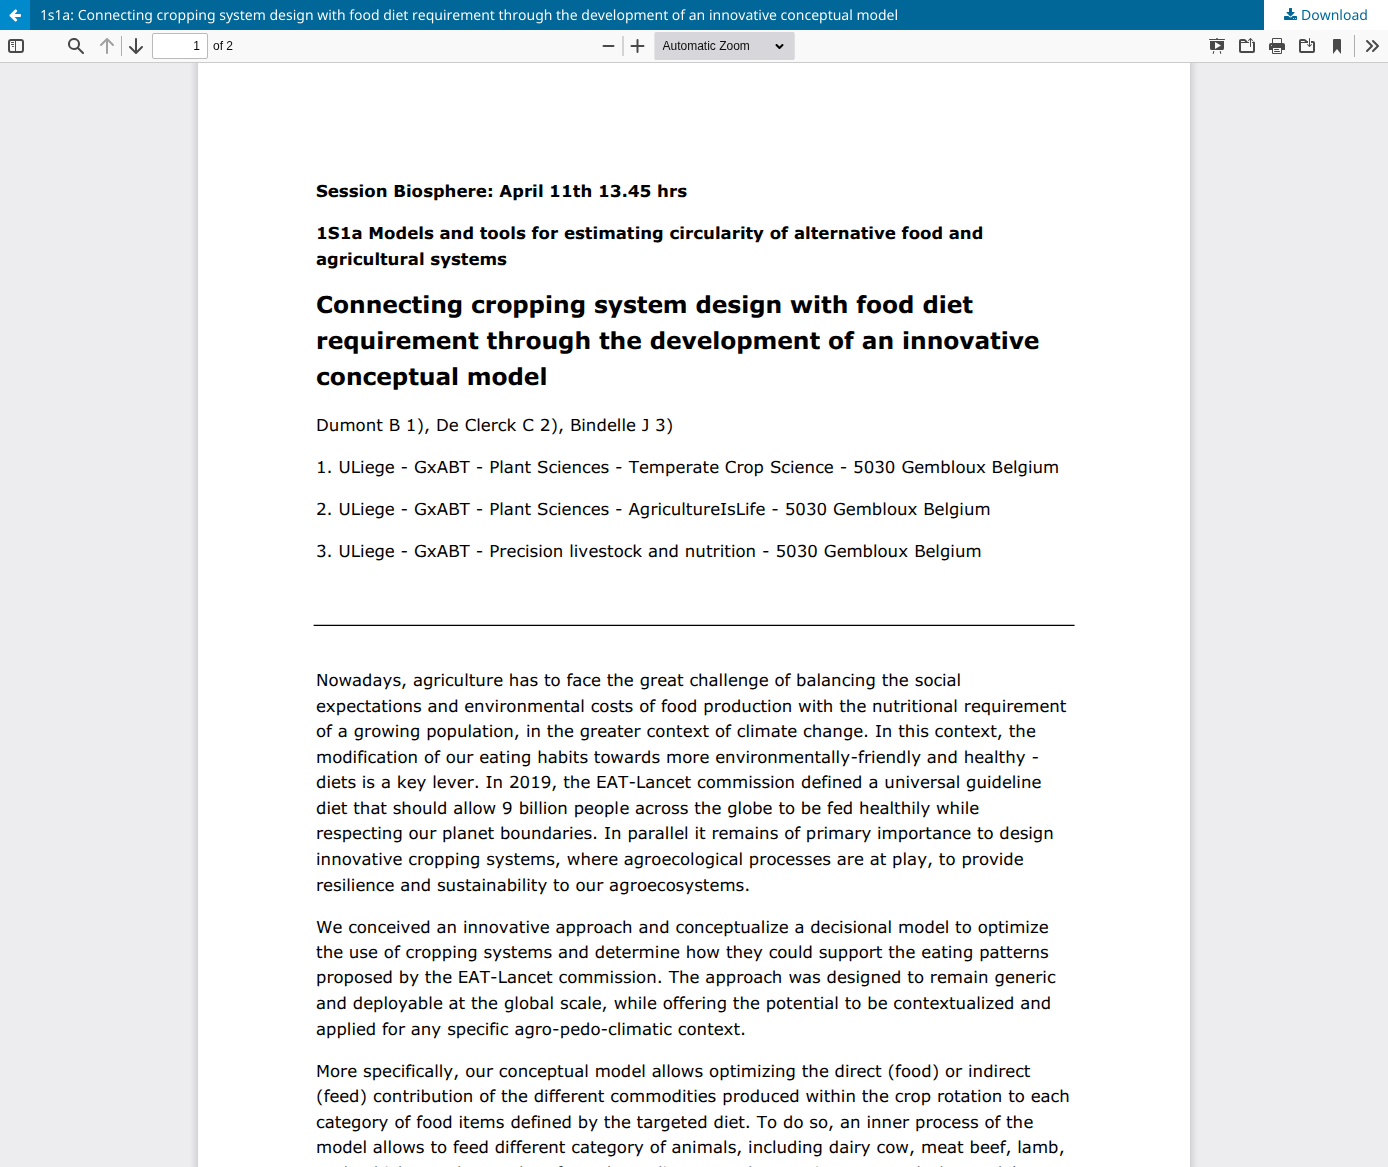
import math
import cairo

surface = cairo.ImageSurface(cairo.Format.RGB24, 1388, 1167)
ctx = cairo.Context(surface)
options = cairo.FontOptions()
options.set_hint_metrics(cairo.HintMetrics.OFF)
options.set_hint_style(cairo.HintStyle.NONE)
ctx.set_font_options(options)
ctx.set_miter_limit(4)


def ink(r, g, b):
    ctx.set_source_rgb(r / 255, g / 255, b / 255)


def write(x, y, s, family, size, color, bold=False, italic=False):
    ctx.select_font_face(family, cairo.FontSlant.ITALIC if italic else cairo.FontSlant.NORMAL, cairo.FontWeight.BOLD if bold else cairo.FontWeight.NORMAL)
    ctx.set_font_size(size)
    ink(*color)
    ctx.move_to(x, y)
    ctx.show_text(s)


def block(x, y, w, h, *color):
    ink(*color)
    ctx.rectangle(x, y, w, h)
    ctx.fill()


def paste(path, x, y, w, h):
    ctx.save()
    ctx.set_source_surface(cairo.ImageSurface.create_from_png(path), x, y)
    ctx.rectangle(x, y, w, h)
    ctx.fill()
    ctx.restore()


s1 = dict(family="Noto Sans", size=14, color=(255, 255, 255))
s2 = dict(family="Noto Sans", size=14, color=(0, 103, 152))

ink(255, 255, 255)
ctx.paint()
block(30, 0, 1234, 30, 0, 103, 152)
block(0, 0, 30, 30, 0, 138, 203)
paste("pic1.png", 9, 9, 12, 13)
write(40, 20, "1s1a: Connecting cropping system design with food diet requirement through the development of an innovative conceptual model", **s1)
paste("pic2.png", 1284, 8, 13, 12)
write(1301, 20, "Download", **s2)
paste("pic3.png", 0, 30, 1388, 1137)
surface.write_to_png("screenshot.png")
